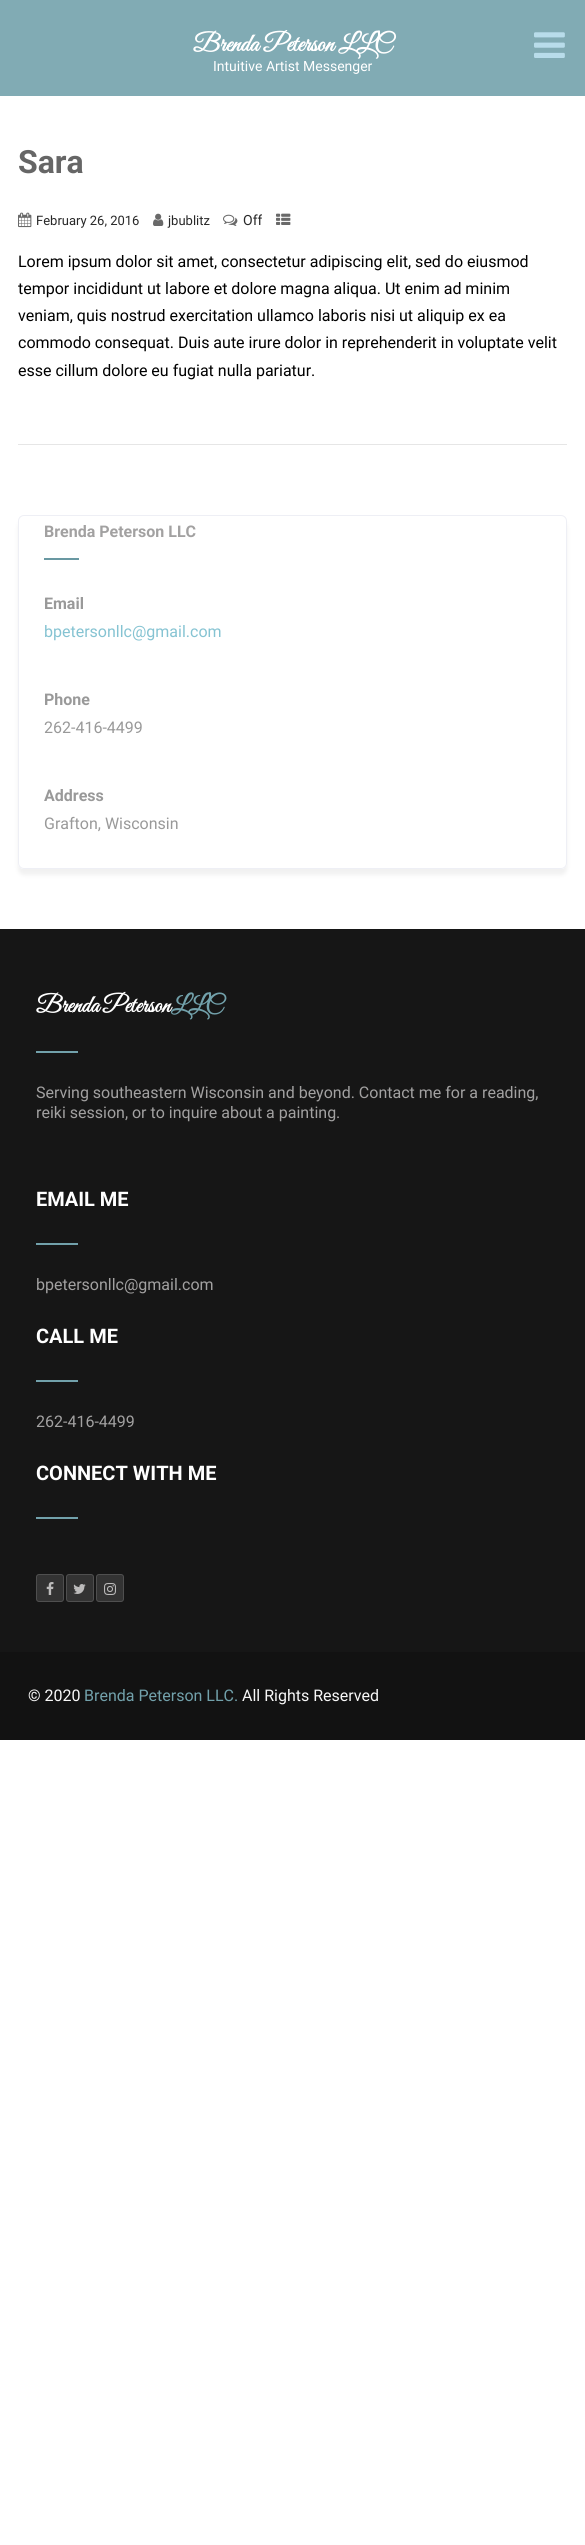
import math
import cairo

surface = cairo.ImageSurface(cairo.Format.RGB24, 585, 2545)
ctx = cairo.Context(surface)
options = cairo.FontOptions()
options.set_hint_metrics(cairo.HintMetrics.OFF)
options.set_hint_style(cairo.HintStyle.NONE)
ctx.set_font_options(options)
ctx.set_miter_limit(4)


def ink(r, g, b):
    ctx.set_source_rgb(r / 255, g / 255, b / 255)


def write(x, y, s, family, size, color, bold=False, italic=False):
    ctx.select_font_face(family, cairo.FontSlant.ITALIC if italic else cairo.FontSlant.NORMAL, cairo.FontWeight.BOLD if bold else cairo.FontWeight.NORMAL)
    ctx.set_font_size(size)
    ink(*color)
    ctx.move_to(x, y)
    ctx.show_text(s)


def write_spaced(x, y, s, letter, word):
    ctx.move_to(x, y)
    for ch in s:
        ctx.show_text(ch)
        ctx.rel_move_to(letter + word * (ch == ' '), 0)


def block(x, y, w, h, *color):
    ink(*color)
    ctx.rectangle(x, y, w, h)
    ctx.fill()


def round_path(x, y, w, h, r):
    ctx.new_sub_path()
    for i, (u, v) in enumerate([(x + w - r, y + h - r), (x + r, y + h - r), (x + r, y + r), (x + w - r, y + r)]):
        ctx.arc(u, v, r, i * math.pi / 2, (i + 1) * math.pi / 2)
    ctx.close_path()


def blur_box(x, y, w, h, r, blur, alpha):
    ctx.push_group_with_content(cairo.Content.ALPHA)
    ctx.set_operator(cairo.Operator.SOURCE)
    for i in range(15, -16, -2):
        e = blur * i / 6
        if min(w, h) + 2 * e > 0:
            ctx.set_source_rgba(0, 0, 0, alpha * math.erfc((i - 1) / 8.5) / 2)
            round_path(x - e, y - e, w + 2 * e, h + 2 * e, max(0, min(r + e + blur * .6, min(w, h) / 2 + e)))
            ctx.fill()
    ctx.mask(ctx.pop_group())


def paste(path, x, y, w, h):
    ctx.save()
    ctx.set_source_surface(cairo.ImageSurface.create_from_png(path), x, y)
    ctx.rectangle(x, y, w, h)
    ctx.fill()
    ctx.restore()


s1 = dict(family="Great Vibes", size=25, color=(255, 255, 255), bold=True)
s2 = dict(family="Roboto", size=14, color=(255, 255, 255))
s3 = dict(family="Roboto", size=32, color=(102, 102, 102), bold=True)
s4 = dict(family="Roboto", size=13, color=(40, 40, 40))
s5 = dict(family="Roboto", size=14, color=(40, 40, 40))
s6 = dict(family="Roboto", size=16, color=(0, 0, 0))
s7 = dict(family="Roboto", size=16, color=(162, 161, 161), bold=True)
s8 = dict(family="Roboto", size=16, color=(153, 153, 153), bold=True)
s9 = dict(family="Roboto", size=16, color=(133, 195, 210))
s10 = dict(family="Roboto", size=16, color=(153, 153, 153))
s11 = dict(family="Great Vibes", size=24, color=(114, 161, 171), bold=True)
s12 = dict(family="Roboto", size=16, color=(162, 161, 161))
s13 = dict(family="Roboto", size=20, color=(255, 255, 255), bold=True)
s14 = dict(family="Roboto", size=16, color=(248, 248, 248))
s15 = dict(family="Roboto", size=16, color=(114, 161, 171))

ink(255, 255, 255)
ctx.paint()
block(0, 0, 585, 96, 129, 171, 180)
write(193, 51, "Brenda Peterson LLC", **s1)
write(213, 71, "Intuitive Artist Messenger", **s2)
paste("pic1.png", 534, 32, 31, 26)
write(18, 173, "Sara", **s3)
paste("pic2.png", 18, 212, 14, 16)
write(36, 225, "February 26, 2016", **s4)
paste("pic3.png", 153, 213, 11, 13)
write(168, 225, "jbublitz", **s4)
paste("pic4.png", 223, 214, 15, 12)
write(243, 225, "Off", **s5)
paste("pic5.png", 276, 213, 15, 12)
write(18, 267, "Lorem ipsum dolor sit amet, consectetur adipiscing elit, sed do eiusmod", **s6)
write(18, 294, "tempor incididunt ut labore et dolore magna aliqua. Ut enim ad minim", **s6)
write(18, 321, "veniam, quis nostrud exercitation ullamco laboris nisi ut aliquip ex ea", **s6)
write(18, 348, "commodo consequat. Duis aute irure dolor in reprehenderit in voluptate velit", **s6)
write(18, 376, "esse cillum dolore eu fugiat nulla pariatur.", **s6)
block(18, 444, 549, 1, 230, 230, 230)
ctx.save()
ctx.set_fill_rule(cairo.FillRule.EVEN_ODD)
ctx.new_path()
ctx.move_to(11, 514)
ctx.line_to(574, 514)
ctx.line_to(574, 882)
ctx.line_to(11, 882)
ctx.close_path()
ctx.move_to(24, 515)
ctx.line_to(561, 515)
ctx.curve_to(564.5, 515, 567, 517.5, 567, 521)
ctx.line_to(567, 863)
ctx.curve_to(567, 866.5, 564.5, 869, 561, 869)
ctx.line_to(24, 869)
ctx.curve_to(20.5, 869, 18, 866.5, 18, 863)
ctx.line_to(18, 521)
ctx.curve_to(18, 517.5, 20.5, 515, 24, 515)
ctx.close_path()
ctx.clip()
ink(220, 220, 220)
blur_box(18, 521, 549, 354, 6, 2, 0.4)
ctx.restore()
round_path(18.5, 515.5, 548, 353, 5.5)
ink(238, 239, 245)
ctx.set_line_width(1)
ctx.stroke()
write(44, 537, "Brenda Peterson LLC", **s7)
block(44, 558, 35, 2, 105, 152, 162)
write(44, 609, "Email", **s8)
write(44, 637, "bpetersonllc@gmail.com", **s9)
write(44, 705, "Phone", **s8)
write(44, 733, "262-416-4499", **s10)
write(44, 801, "Address", **s8)
write(44, 829, "Grafton, Wisconsin", **s10)
block(0, 929, 585, 723, 22, 22, 22)
ctx.select_font_face("Great Vibes", cairo.FontSlant.NORMAL, cairo.FontWeight.BOLD)
ctx.set_font_size(24)
ink(255, 255, 255)
write_spaced(36, 1012, "Brenda Peterson", 0, -1)
write(171, 1012, "LLC", **s11)
block(36, 1051, 42, 2, 114, 161, 171)
write(36, 1098, "Serving southeastern Wisconsin and beyond. Contact me for a reading,", **s12)
write(36, 1118, "reiki session, or to inquire about a painting.", **s12)
write(36, 1206, "EMAIL ME", **s13)
block(36, 1243, 42, 2, 114, 161, 171)
write(36, 1290, "bpetersonllc@gmail.com", **s12)
write(36, 1343, "CALL ME", **s13)
block(36, 1380, 42, 2, 114, 161, 171)
write(36, 1427, "262-416-4499", **s12)
write(36, 1480, "CONNECT WITH ME", **s13)
block(36, 1517, 42, 2, 114, 161, 171)
ink(51, 51, 51)
round_path(36.5, 1574.5, 27, 27, 2.5)
ctx.fill_preserve()
ink(79, 79, 79)
ctx.stroke()
paste("pic6.png", 46, 1582, 8, 13)
ink(51, 51, 51)
round_path(66.5, 1574.5, 27, 27, 2.5)
ctx.fill_preserve()
ink(79, 79, 79)
ctx.stroke()
paste("pic7.png", 73, 1584, 13, 10)
ink(51, 51, 51)
round_path(96.5, 1574.5, 27, 27, 2.5)
ctx.fill_preserve()
ink(79, 79, 79)
ctx.stroke()
paste("pic8.png", 104, 1583, 12, 12)
block(0, 1652, 585, 88, 18, 18, 18)
write(28, 1701, "© 2020", **s14)
write(84, 1701, "Brenda Peterson LLC.", **s15)
write(242, 1701, "All Rights Reserved", **s14)
surface.write_to_png("screenshot.png")
